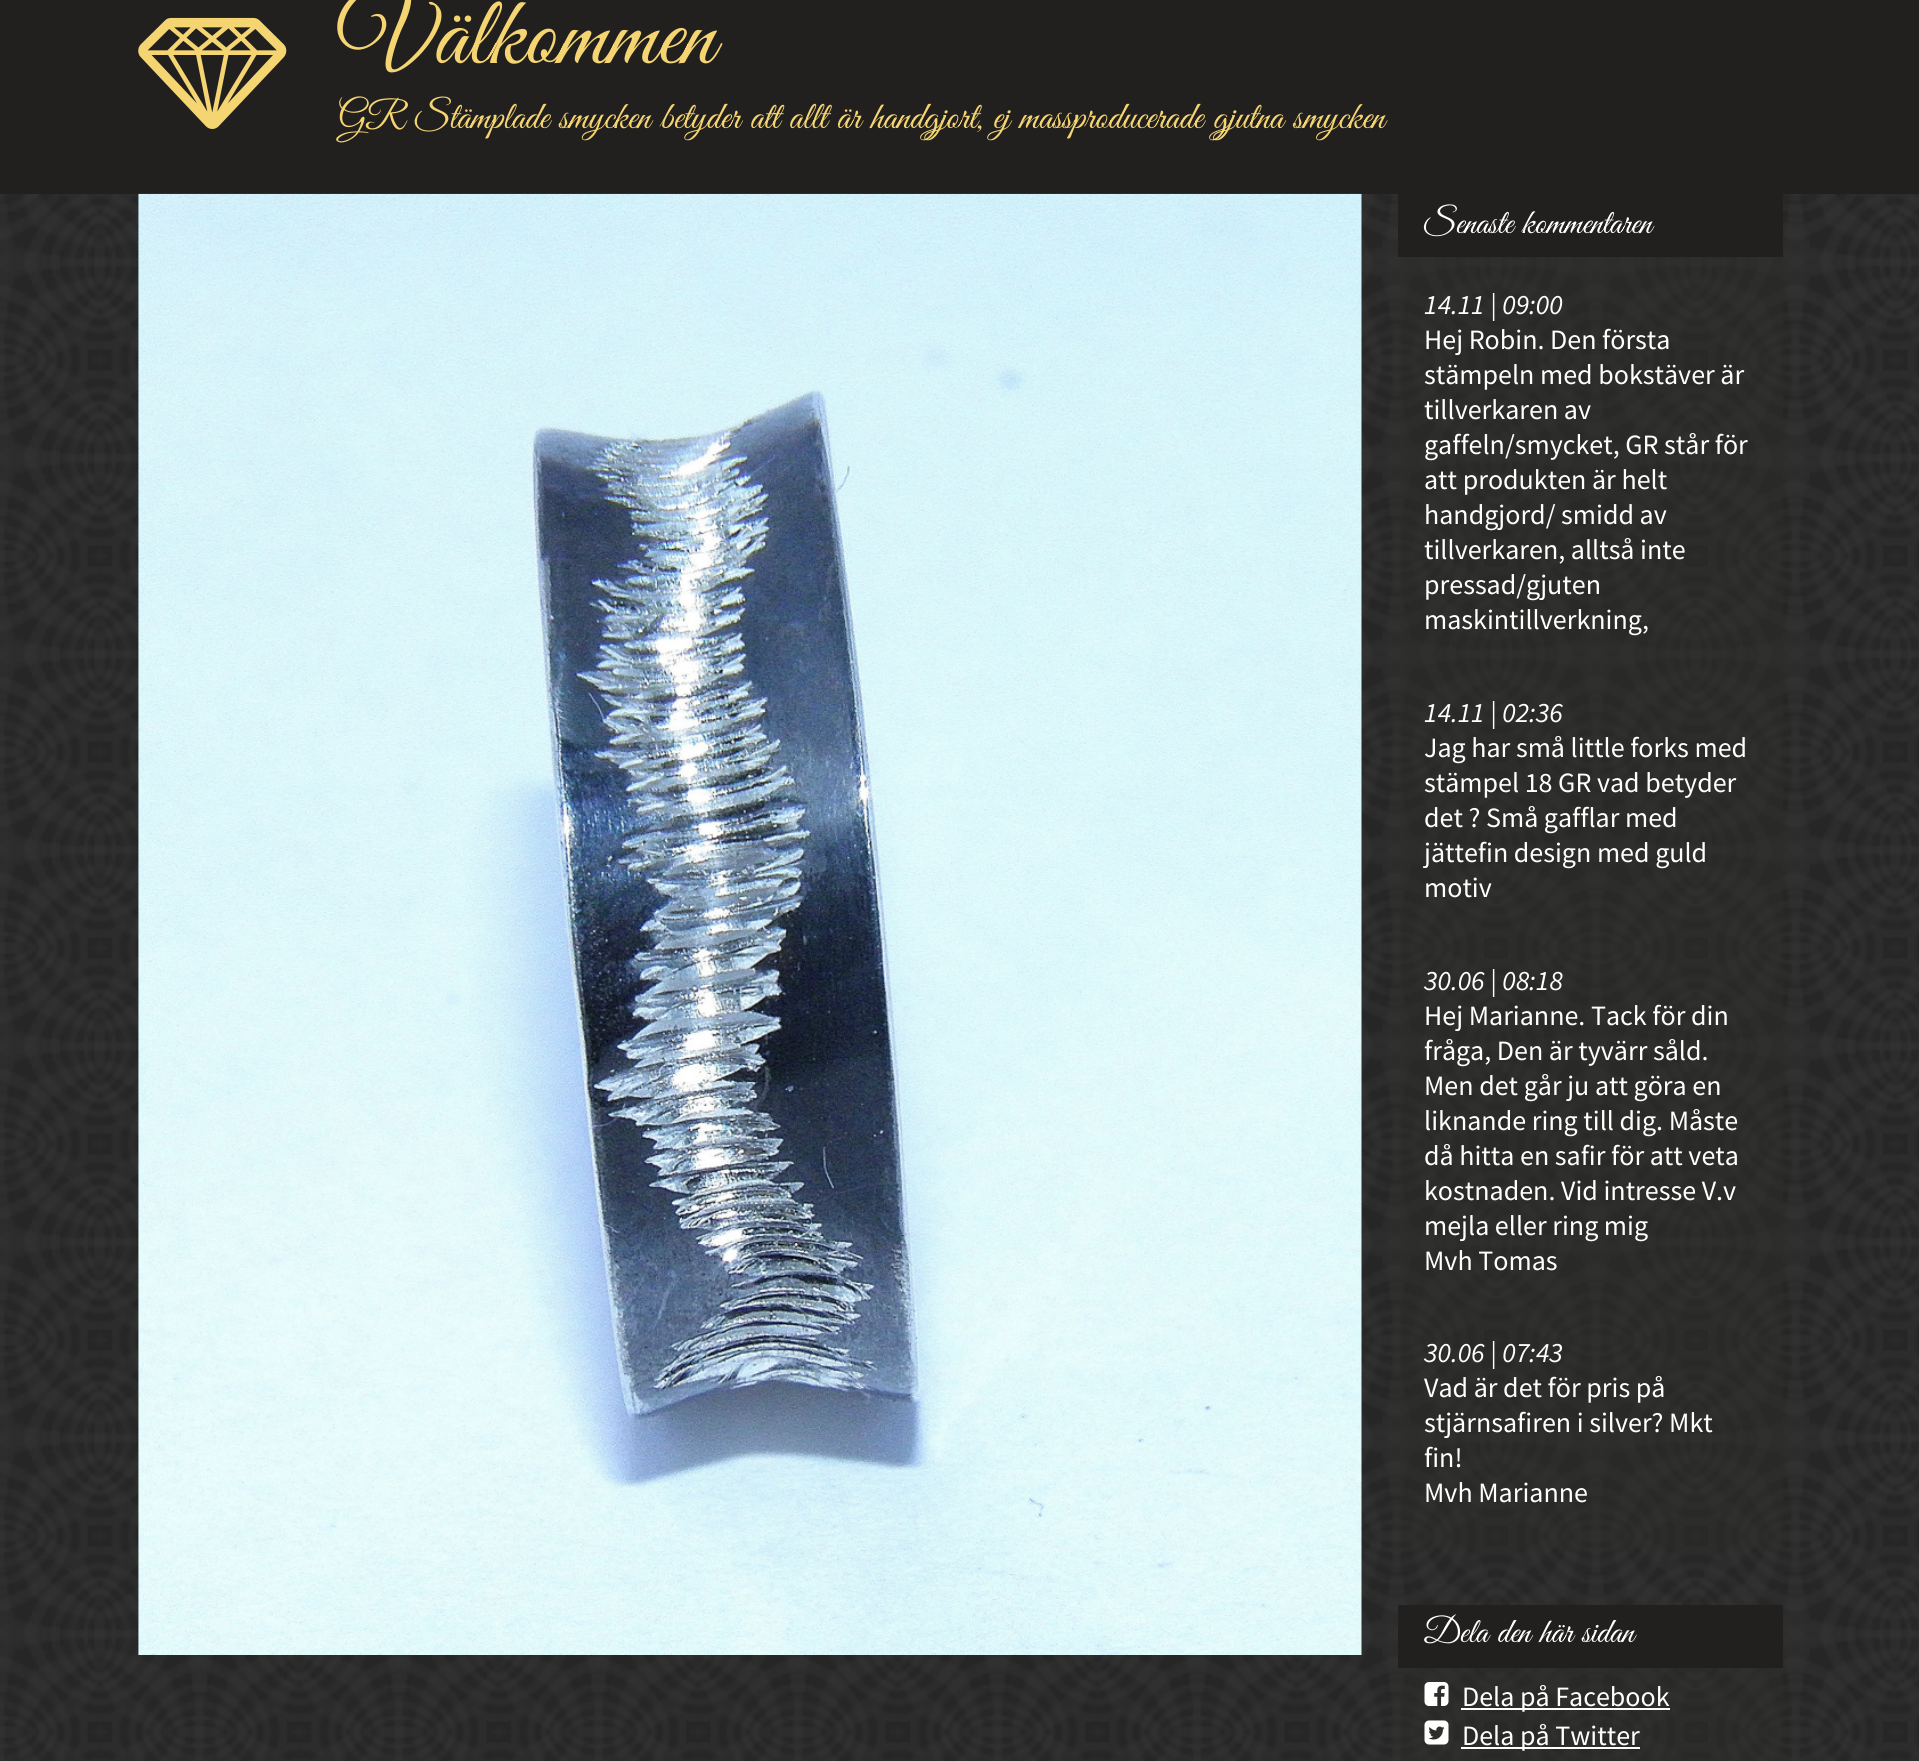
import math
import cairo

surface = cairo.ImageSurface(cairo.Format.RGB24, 1919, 1761)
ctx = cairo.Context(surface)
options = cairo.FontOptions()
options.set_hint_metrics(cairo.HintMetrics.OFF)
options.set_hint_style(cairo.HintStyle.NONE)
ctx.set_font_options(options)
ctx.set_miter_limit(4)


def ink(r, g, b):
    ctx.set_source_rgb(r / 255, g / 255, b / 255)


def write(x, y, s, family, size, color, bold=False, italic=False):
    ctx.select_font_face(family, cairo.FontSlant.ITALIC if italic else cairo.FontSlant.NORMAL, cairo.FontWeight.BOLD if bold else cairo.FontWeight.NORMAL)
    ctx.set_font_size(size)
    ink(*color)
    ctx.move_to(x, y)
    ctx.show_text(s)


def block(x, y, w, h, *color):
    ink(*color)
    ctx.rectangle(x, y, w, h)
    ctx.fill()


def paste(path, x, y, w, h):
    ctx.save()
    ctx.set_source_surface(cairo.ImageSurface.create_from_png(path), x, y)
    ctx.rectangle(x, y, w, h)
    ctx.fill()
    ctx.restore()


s1 = dict(family="Great Vibes", size=98, color=(245, 212, 114))
s2 = dict(family="Great Vibes", size=38.5, color=(245, 212, 114))
s3 = dict(family="Great Vibes", size=35, color=(255, 255, 255))
s4 = dict(family="Source Sans Pro", size=28, color=(255, 255, 255), italic=True)
s5 = dict(family="Source Sans Pro", size=28, color=(255, 255, 255))

ink(33, 33, 33)
ctx.paint()
paste("pic1.png", 0, 194, 1919, 1567)
block(0, 0, 1919, 194, 33, 32, 30)
paste("pic2.png", 138, 17, 149, 112)
write(338, 63, "Välkommen", **s1)
write(338, 128, "GR Stämplade smycken betyder att allt är handgjort, ej massproducerade gjutna smycken", **s2)
paste("pic3.png", 138, 193, 1224, 1462)
block(1398, 194, 385, 63, 33, 32, 30)
write(1424, 233, "Senaste kommentaren", **s3)
ctx.set_source_rgba(0.18, 0.176, 0.173, 0.4)
ctx.rectangle(1400, 257, 383, 1292)
ctx.fill()
write(1424, 314, "14.11 | 09:00", **s4)
write(1424, 349, "Hej Robin. Den första", **s5)
write(1424, 384, "stämpeln med bokstäver är", **s5)
write(1424, 419, "tillverkaren av", **s5)
write(1424, 454, "gaffeln/smycket, GR står för", **s5)
write(1424, 489, "att produkten är helt", **s5)
write(1424, 524, "handgjord/ smidd av", **s5)
write(1424, 559, "tillverkaren, alltså inte", **s5)
write(1424, 594, "pressad/gjuten", **s5)
write(1424, 629, "maskintillverkning,", **s5)
write(1424, 722, "14.11 | 02:36", **s4)
write(1424, 757, "Jag har små little forks med", **s5)
write(1424, 792, "stämpel 18 GR vad betyder", **s5)
write(1424, 827, "det ? Små gafflar med", **s5)
write(1424, 862, "jättefin design med guld", **s5)
write(1424, 897, "motiv", **s5)
write(1424, 990, "30.06 | 08:18", **s4)
write(1424, 1025, "Hej Marianne. Tack för din", **s5)
write(1424, 1060, "fråga, Den är tyvärr såld.", **s5)
write(1424, 1095, "Men det går ju att göra en", **s5)
write(1424, 1130, "liknande ring till dig. Måste", **s5)
write(1424, 1165, "då hitta en safir för att veta", **s5)
write(1424, 1200, "kostnaden. Vid intresse V.v", **s5)
write(1424, 1235, "mejla eller ring mig", **s5)
write(1424, 1270, "Mvh Tomas", **s5)
write(1424, 1362, "30.06 | 07:43", **s4)
write(1424, 1397, "Vad är det för pris på", **s5)
write(1424, 1432, "stjärnsafiren i silver? Mkt", **s5)
write(1424, 1467, "fin!", **s5)
write(1424, 1502, "Mvh Marianne", **s5)
block(1398, 1605, 385, 63, 33, 32, 30)
write(1424, 1642, "Dela den här sidan", **s3)
ctx.set_source_rgba(0.18, 0.176, 0.173, 0.4)
ctx.rectangle(1400, 1668, 383, 93)
ctx.fill()
paste("pic4.png", 1424, 1682, 25, 24)
block(1461, 1708, 209, 2, 255, 255, 255)
write(1462, 1706, "Dela på Facebook", **s5)
paste("pic5.png", 1424, 1720, 25, 25)
block(1461, 1747, 179, 2, 255, 255, 255)
write(1462, 1745, "Dela på Twitter", **s5)
surface.write_to_png("screenshot.png")
